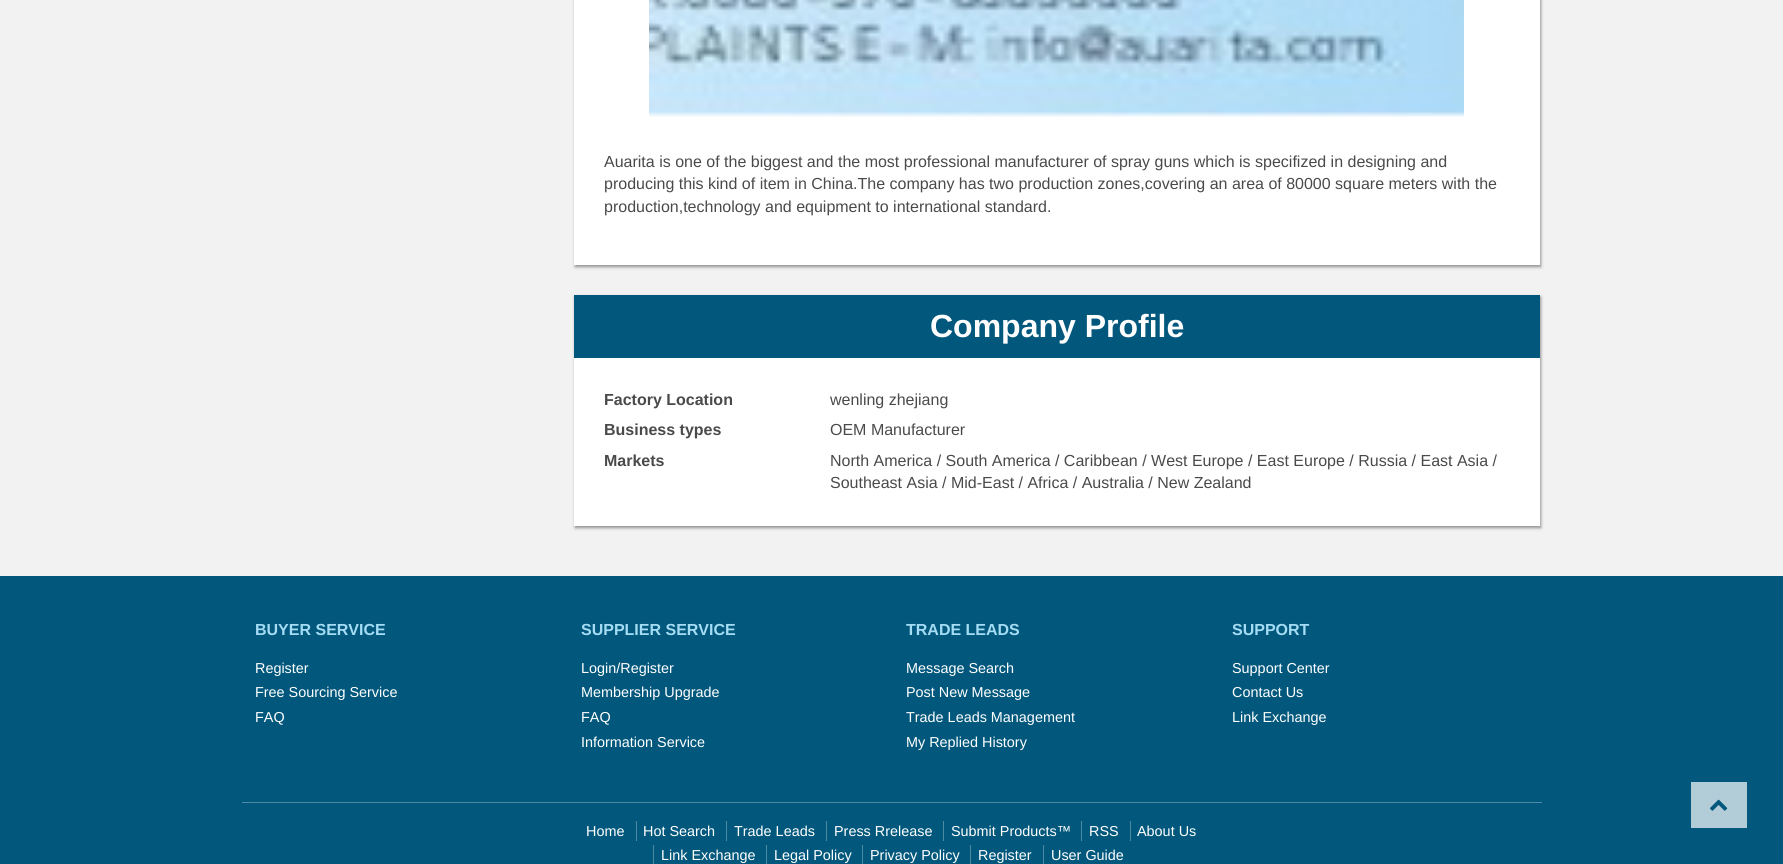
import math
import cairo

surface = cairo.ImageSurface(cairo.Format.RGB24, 1783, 864)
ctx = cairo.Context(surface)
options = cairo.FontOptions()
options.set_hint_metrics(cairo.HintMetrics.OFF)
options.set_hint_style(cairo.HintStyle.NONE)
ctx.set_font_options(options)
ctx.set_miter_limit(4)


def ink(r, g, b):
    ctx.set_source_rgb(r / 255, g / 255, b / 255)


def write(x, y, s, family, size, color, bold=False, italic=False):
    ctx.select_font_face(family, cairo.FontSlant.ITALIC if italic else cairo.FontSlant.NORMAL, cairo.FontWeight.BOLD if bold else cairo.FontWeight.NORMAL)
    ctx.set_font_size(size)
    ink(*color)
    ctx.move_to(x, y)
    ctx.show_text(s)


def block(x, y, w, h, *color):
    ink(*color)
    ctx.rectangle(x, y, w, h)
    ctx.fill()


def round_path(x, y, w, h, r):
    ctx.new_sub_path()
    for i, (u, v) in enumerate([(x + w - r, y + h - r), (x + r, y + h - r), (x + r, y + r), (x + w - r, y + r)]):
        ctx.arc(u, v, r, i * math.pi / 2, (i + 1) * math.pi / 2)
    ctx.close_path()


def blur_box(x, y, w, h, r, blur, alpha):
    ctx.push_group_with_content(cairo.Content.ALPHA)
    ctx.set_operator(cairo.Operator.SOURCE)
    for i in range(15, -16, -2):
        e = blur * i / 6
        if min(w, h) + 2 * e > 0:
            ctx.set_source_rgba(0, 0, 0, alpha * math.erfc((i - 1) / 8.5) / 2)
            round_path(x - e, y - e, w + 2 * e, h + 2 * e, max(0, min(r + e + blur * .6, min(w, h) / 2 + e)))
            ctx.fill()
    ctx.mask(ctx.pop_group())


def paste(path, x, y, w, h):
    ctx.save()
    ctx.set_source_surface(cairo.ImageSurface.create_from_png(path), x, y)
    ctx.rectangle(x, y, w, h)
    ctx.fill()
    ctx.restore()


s1 = dict(family="Liberation Sans", size=16, color=(74, 74, 74))
s2 = dict(family="Liberation Sans", size=32, color=(255, 255, 255), bold=True)
s3 = dict(family="Liberation Sans", size=16, color=(74, 74, 74), bold=True)
s4 = dict(family="Liberation Sans", size=16, color=(164, 220, 244), bold=True)
s5 = dict(family="Liberation Sans", size=14.4, color=(255, 255, 255))

ink(242, 242, 242)
ctx.paint()
ink(0, 0, 0)
blur_box(575, -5, 966, 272, 0, 1.5, 0.4)
block(574, 0, 966, 265, 255, 255, 255)
paste("pic1.png", 649, 0, 815, 117)
write(604, 167, "Auarita is one of the biggest and the most professional manufacturer of spray guns which is specifized in designing and", **s1)
write(604, 189, "producing this kind of item in China.The company has two production zones,covering an area of 80000 square meters with the", **s1)
write(604, 212, "production,technology and equipment to international standard.", **s1)
ink(0, 0, 0)
blur_box(575, 297, 966, 231, 0, 1.5, 0.4)
block(574, 358, 966, 168, 255, 255, 255)
block(574, 295, 966, 63, 2, 88, 124)
write(930, 337, "Company Profile", **s2)
write(604, 405, "Factory Location", **s3)
write(830, 405, "wenling zhejiang", **s1)
write(604, 435, "Business types", **s3)
write(830, 435, "OEM Manufacturer", **s1)
write(604, 466, "Markets", **s3)
write(830, 466, "North America / South America / Caribbean / West Europe / East Europe / Russia / East Asia /", **s1)
write(830, 488, "Southeast Asia / Mid-East / Africa / Australia / New Zealand", **s1)
block(0, 576, 1783, 288, 2, 88, 124)
block(242, 802, 1300, 1, 78, 138, 163)
write(255, 635, "BUYER SERVICE", **s4)
write(255, 673, "Register", **s5)
write(255, 697, "Free Sourcing Service", **s5)
write(255, 722, "FAQ", **s5)
write(581, 635, "SUPPLIER SERVICE", **s4)
write(581, 673, "Login/Register", **s5)
write(581, 697, "Membership Upgrade", **s5)
write(581, 722, "FAQ", **s5)
write(581, 747, "Information Service", **s5)
write(906, 635, "TRADE LEADS", **s4)
write(906, 673, "Message Search", **s5)
write(906, 697, "Post New Message", **s5)
write(906, 722, "Trade Leads Management", **s5)
write(906, 747, "My Replied History", **s5)
write(1232, 635, "SUPPORT", **s4)
write(1232, 673, "Support Center", **s5)
write(1232, 697, "Contact Us", **s5)
write(1232, 722, "Link Exchange", **s5)
write(586, 836, "Home", **s5)
block(636, 821, 1, 20, 78, 138, 163)
write(643, 836, "Hot Search", **s5)
block(726, 821, 1, 20, 78, 138, 163)
write(734, 836, "Trade Leads", **s5)
block(826, 821, 1, 20, 78, 138, 163)
write(834, 836, "Press Rrelease", **s5)
block(943, 821, 1, 20, 78, 138, 163)
write(951, 836, "Submit Products™", **s5)
block(1081, 821, 1, 20, 78, 138, 163)
write(1089, 836, "RSS", **s5)
block(1130, 821, 1, 20, 78, 138, 163)
write(1137, 836, "About Us", **s5)
block(653, 845, 1, 19, 78, 138, 163)
write(661, 860, "Link Exchange", **s5)
block(766, 845, 1, 19, 78, 138, 163)
write(774, 860, "Legal Policy", **s5)
block(862, 845, 1, 19, 78, 138, 163)
write(870, 860, "Privacy Policy", **s5)
block(970, 845, 1, 19, 78, 138, 163)
write(978, 860, "Register", **s5)
block(1043, 845, 1, 19, 78, 138, 163)
write(1051, 860, "User Guide", **s5)
block(1691, 782, 56, 46, 179, 205, 216)
paste("pic2.png", 1710, 799, 18, 12)
surface.write_to_png("screenshot.png")
